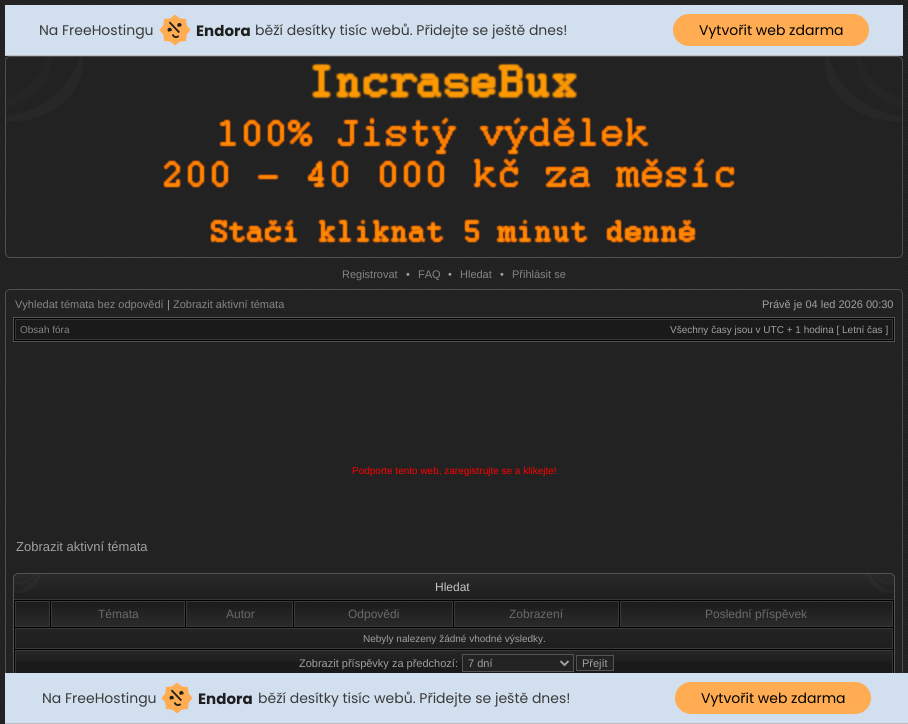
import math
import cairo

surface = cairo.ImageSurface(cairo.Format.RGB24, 908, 724)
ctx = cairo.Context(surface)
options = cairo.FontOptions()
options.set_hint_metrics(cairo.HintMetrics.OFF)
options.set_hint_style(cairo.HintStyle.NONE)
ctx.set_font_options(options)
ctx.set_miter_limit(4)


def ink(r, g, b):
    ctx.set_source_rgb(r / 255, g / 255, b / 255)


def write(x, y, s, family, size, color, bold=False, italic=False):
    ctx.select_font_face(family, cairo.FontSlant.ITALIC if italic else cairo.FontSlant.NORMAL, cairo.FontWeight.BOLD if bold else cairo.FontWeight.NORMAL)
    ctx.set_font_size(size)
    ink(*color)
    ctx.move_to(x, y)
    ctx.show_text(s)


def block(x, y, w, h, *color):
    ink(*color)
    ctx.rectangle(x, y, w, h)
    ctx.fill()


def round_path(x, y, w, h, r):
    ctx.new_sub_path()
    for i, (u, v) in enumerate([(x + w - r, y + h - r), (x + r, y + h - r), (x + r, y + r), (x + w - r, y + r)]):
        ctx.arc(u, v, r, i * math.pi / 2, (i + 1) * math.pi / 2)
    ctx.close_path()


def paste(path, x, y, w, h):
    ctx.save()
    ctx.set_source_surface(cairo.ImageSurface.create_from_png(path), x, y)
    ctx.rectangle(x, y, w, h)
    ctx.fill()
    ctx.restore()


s1 = dict(family="Poppins", size=14, color=(58, 58, 58))
s2 = dict(family="Poppins", size=15, color=(30, 30, 30), bold=True)
s3 = dict(family="Poppins", size=14, color=(0, 0, 0))
s4 = dict(family="Liberation Sans", size=11, color=(132, 132, 132))
s5 = dict(family="Liberation Sans", size=11, color=(160, 160, 160))
s6 = dict(family="Liberation Sans", size=10, color=(132, 132, 132))
s7 = dict(family="Liberation Sans", size=10, color=(160, 160, 160))
s8 = dict(family="Liberation Sans", size=10, color=(255, 0, 0))
s9 = dict(family="Liberation Sans", size=13, color=(160, 160, 160))
s10 = dict(family="Liberation Sans", size=12, color=(196, 196, 196))
s11 = dict(family="Liberation Sans", size=12, color=(106, 106, 106))

ink(255, 255, 255)
ctx.paint()
paste("pic1.png", 0, 0, 908, 724)
block(5, 5, 898, 50, 210, 223, 239)
block(5, 55, 898, 1, 190, 191, 196)
write(39, 35, "Na FreeHostingu", **s1)
paste("pic2.png", 159, 14, 32, 32)
write(196, 36, "Endora", **s2)
write(255, 35, "běží desítky tisíc webů. Přidejte se ještě dnes!", **s1)
ink(255, 172, 82)
round_path(673, 14, 196, 32, 16)
ctx.fill()
write(699, 35, "Vytvořit web zdarma", **s3)
block(6, 57, 896, 200, 34, 34, 34)
block(83, 56, 742, 1, 79, 79, 79)
block(5, 122, 1, 136, 79, 79, 79)
block(902, 122, 1, 136, 79, 79, 79)
block(6, 257, 896, 1, 79, 79, 79)
paste("pic3.png", 5, 254, 5, 4)
paste("pic4.png", 5, 56, 78, 66)
paste("pic5.png", 163, 63, 572, 181)
paste("pic6.png", 898, 254, 5, 4)
paste("pic7.png", 825, 56, 78, 66)
write(342, 278, "Registrovat", **s4)
write(406, 278, "•", **s5)
write(418, 278, "FAQ", **s4)
write(448, 278, "•", **s5)
write(460, 278, "Hledat", **s4)
write(500, 278, "•", **s5)
write(512, 278, "Přihlásit se", **s4)
block(6, 290, 896, 383, 34, 34, 34)
block(5, 289, 898, 1, 79, 79, 79)
block(5, 290, 1, 383, 79, 79, 79)
block(902, 290, 1, 383, 79, 79, 79)
paste("pic8.png", 5, 289, 5, 4)
paste("pic9.png", 898, 289, 5, 4)
write(15, 308, "Vyhledat témata bez odpovědí", **s4)
write(167, 308, "|", **s5)
write(173, 308, "Zobrazit aktivní témata", **s4)
write(762, 308, "Právě je 04 led 2026 00:30", **s5)
ink(0, 0, 0)
ctx.rectangle(13.5, 317.5, 881, 24)
ctx.fill_preserve()
ink(84, 84, 84)
ctx.set_line_width(1)
ctx.stroke()
ink(26, 26, 26)
ctx.rectangle(15.5, 319.5, 877, 20)
ctx.fill_preserve()
ink(57, 57, 57)
ctx.stroke()
write(20, 333, "Obsah fóra", **s6)
write(670, 333, "Všechny časy jsou v UTC + 1 hodina [ Letní čas ]", **s7)
write(352, 474, "Podporte tento web, zaregistrujte se a klikejte!", **s8)
write(16, 551, "Zobrazit aktivní témata", **s9)
paste("pic10.png", 14, 573, 880, 27)
paste("pic11.png", 13, 573, 28, 27)
paste("pic12.png", 867, 573, 28, 27)
write(435, 591, "Hledat", **s10)
block(14, 600, 880, 73, 0, 0, 0)
block(894, 600, 1, 77, 84, 84, 84)
block(13, 600, 1, 77, 84, 84, 84)
paste("pic13.png", 16, 602, 33, 24)
ctx.rectangle(15.5, 601.5, 34, 25)
ink(57, 57, 57)
ctx.stroke()
paste("pic14.png", 52, 602, 132, 24)
ctx.rectangle(51.5, 601.5, 133, 25)
ctx.stroke()
write(98, 618, "Témata", **s11)
paste("pic15.png", 187, 602, 105, 24)
ctx.rectangle(186.5, 601.5, 106, 25)
ink(57, 57, 57)
ctx.stroke()
write(226, 618, "Autor", **s11)
paste("pic16.png", 295, 602, 157, 24)
ctx.rectangle(294.5, 601.5, 158, 25)
ink(57, 57, 57)
ctx.stroke()
write(348, 618, "Odpovědi", **s11)
paste("pic17.png", 455, 602, 163, 24)
ctx.rectangle(454.5, 601.5, 164, 25)
ink(57, 57, 57)
ctx.stroke()
write(509, 618, "Zobrazení", **s11)
paste("pic18.png", 621, 602, 271, 24)
ctx.rectangle(620.5, 601.5, 272, 25)
ink(57, 57, 57)
ctx.stroke()
write(705, 618, "Poslední příspěvek", **s11)
paste("pic19.png", 16, 629, 876, 19)
ctx.rectangle(15.5, 628.5, 877, 20)
ink(57, 57, 57)
ctx.stroke()
write(363, 642, "Nebyly nalezeny žádné vhodné výsledky.", **s7)
block(16, 662, 876, 11, 26, 26, 26)
paste("pic20.png", 16, 651, 876, 11)
ctx.rectangle(15.5, 650.5, 877, 25)
ink(57, 57, 57)
ctx.stroke()
write(299, 667, "Zobrazit příspěvky za předchozí:", **s5)
block(463, 659, 110, 12, 35, 35, 35)
ctx.rectangle(462.5, 654.5, 111, 17)
ink(84, 84, 84)
ctx.stroke()
ctx.new_path()
ctx.move_to(560.5, 661)
ctx.line_to(564.5, 665)
ctx.line_to(568.5, 661)
ink(160, 160, 160)
ctx.set_line_width(2)
ctx.stroke()
write(468, 667, "7 dní", **s5)
block(577, 659, 36, 11, 35, 35, 35)
ctx.rectangle(576.5, 655.5, 37, 15)
ink(84, 84, 84)
ctx.set_line_width(1)
ctx.stroke()
write(582, 667, "Přejít", **s5)
block(5, 673, 903, 50, 210, 223, 239)
block(5, 723, 903, 1, 190, 191, 196)
write(42, 703, "Na FreeHostingu", **s1)
paste("pic2.png", 161, 682, 32, 32)
write(198, 704, "Endora", **s2)
write(258, 703, "běží desítky tisíc webů. Přidejte se ještě dnes!", **s1)
ink(255, 172, 82)
round_path(675, 682, 196, 32, 16)
ctx.fill()
write(701, 703, "Vytvořit web zdarma", **s3)
surface.write_to_png("screenshot.png")
